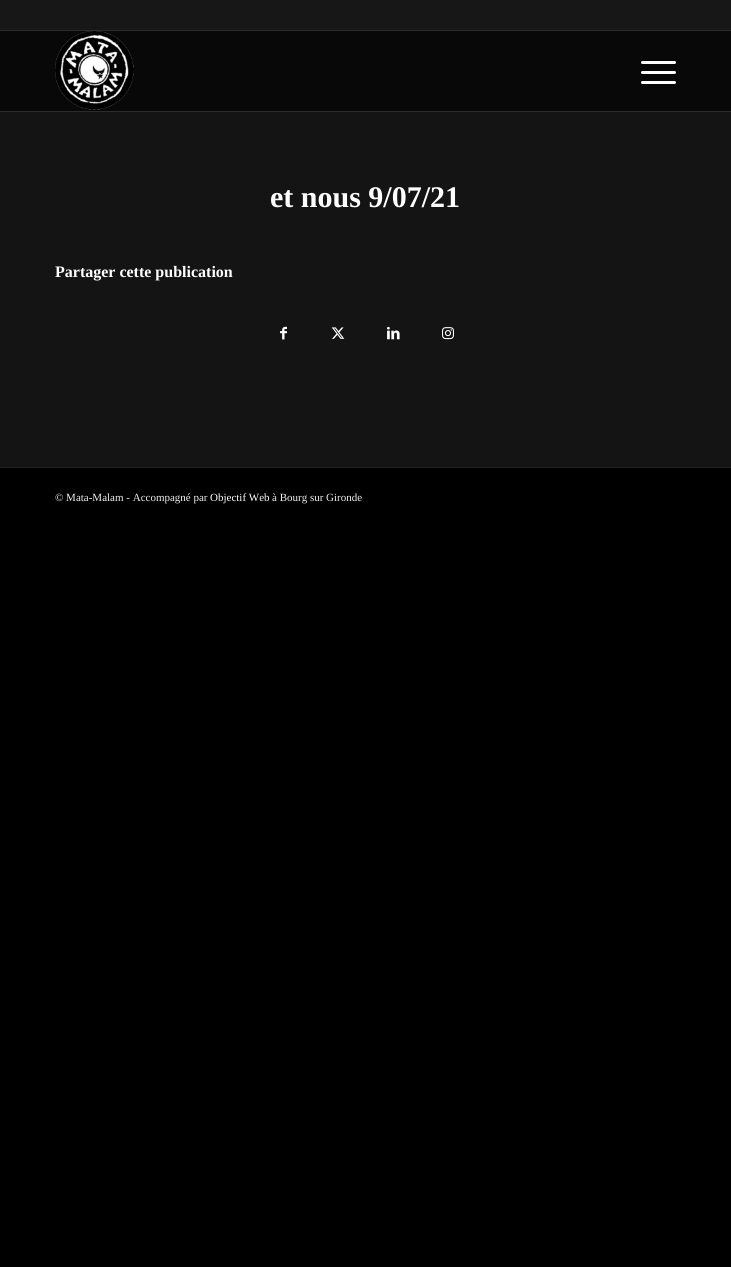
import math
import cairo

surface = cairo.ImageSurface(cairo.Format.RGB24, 731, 1267)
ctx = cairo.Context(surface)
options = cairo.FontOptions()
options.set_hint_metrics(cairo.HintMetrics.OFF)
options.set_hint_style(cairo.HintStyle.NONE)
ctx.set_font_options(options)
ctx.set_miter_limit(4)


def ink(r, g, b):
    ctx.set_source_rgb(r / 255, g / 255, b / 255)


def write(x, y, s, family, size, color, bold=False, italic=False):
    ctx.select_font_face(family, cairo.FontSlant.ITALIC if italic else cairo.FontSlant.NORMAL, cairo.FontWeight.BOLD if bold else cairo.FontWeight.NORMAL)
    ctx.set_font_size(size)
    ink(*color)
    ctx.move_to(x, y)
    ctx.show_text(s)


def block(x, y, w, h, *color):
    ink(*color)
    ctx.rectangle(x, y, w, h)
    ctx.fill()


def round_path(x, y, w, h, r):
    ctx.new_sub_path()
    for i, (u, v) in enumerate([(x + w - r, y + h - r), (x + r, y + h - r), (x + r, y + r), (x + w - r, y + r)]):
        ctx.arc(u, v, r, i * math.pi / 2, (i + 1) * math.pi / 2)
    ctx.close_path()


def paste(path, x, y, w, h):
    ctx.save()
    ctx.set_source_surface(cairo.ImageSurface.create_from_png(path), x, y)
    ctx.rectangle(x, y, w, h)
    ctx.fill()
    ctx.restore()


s1 = dict(family="Liberation Serif", size=30, color=(255, 255, 255), bold=True)
s2 = dict(family="Liberation Serif", size=16, color=(255, 255, 255), bold=True)
s3 = dict(family="Liberation Serif", size=11, color=(238, 238, 238))
s4 = dict(family="Liberation Serif", size=11, color=(255, 255, 255))

ink(0, 0, 0)
ctx.paint()
block(0, 0, 731, 30, 23, 23, 23)
block(0, 30, 731, 1, 43, 43, 43)
block(0, 31, 731, 80, 8, 8, 8)
block(0, 111, 731, 1, 43, 43, 43)
paste("pic1.png", 55, 31, 79, 79)
ink(255, 255, 255)
round_path(641, 71, 35, 3, 1.5)
ctx.fill()
round_path(641, 61, 35, 3, 1.5)
ctx.fill()
round_path(641, 81, 35, 3, 1.5)
ctx.fill()
block(0, 112, 731, 355, 20, 20, 20)
write(270, 207, "et nous 9/07/21", **s1)
write(55, 277, "Partager cette publication", **s2)
paste("pic2.png", 280, 326, 7, 14)
paste("pic3.png", 331, 327, 14, 12)
paste("pic4.png", 387, 326, 13, 14)
paste("pic5.png", 442, 327, 12, 13)
block(0, 467, 731, 1, 34, 34, 34)
write(55, 501, "© Mata-Malam - Accompagné par", **s3)
write(210, 501, "Objectif Web", **s4)
write(272, 501, "à Bourg sur Gironde", **s3)
surface.write_to_png("screenshot.png")
